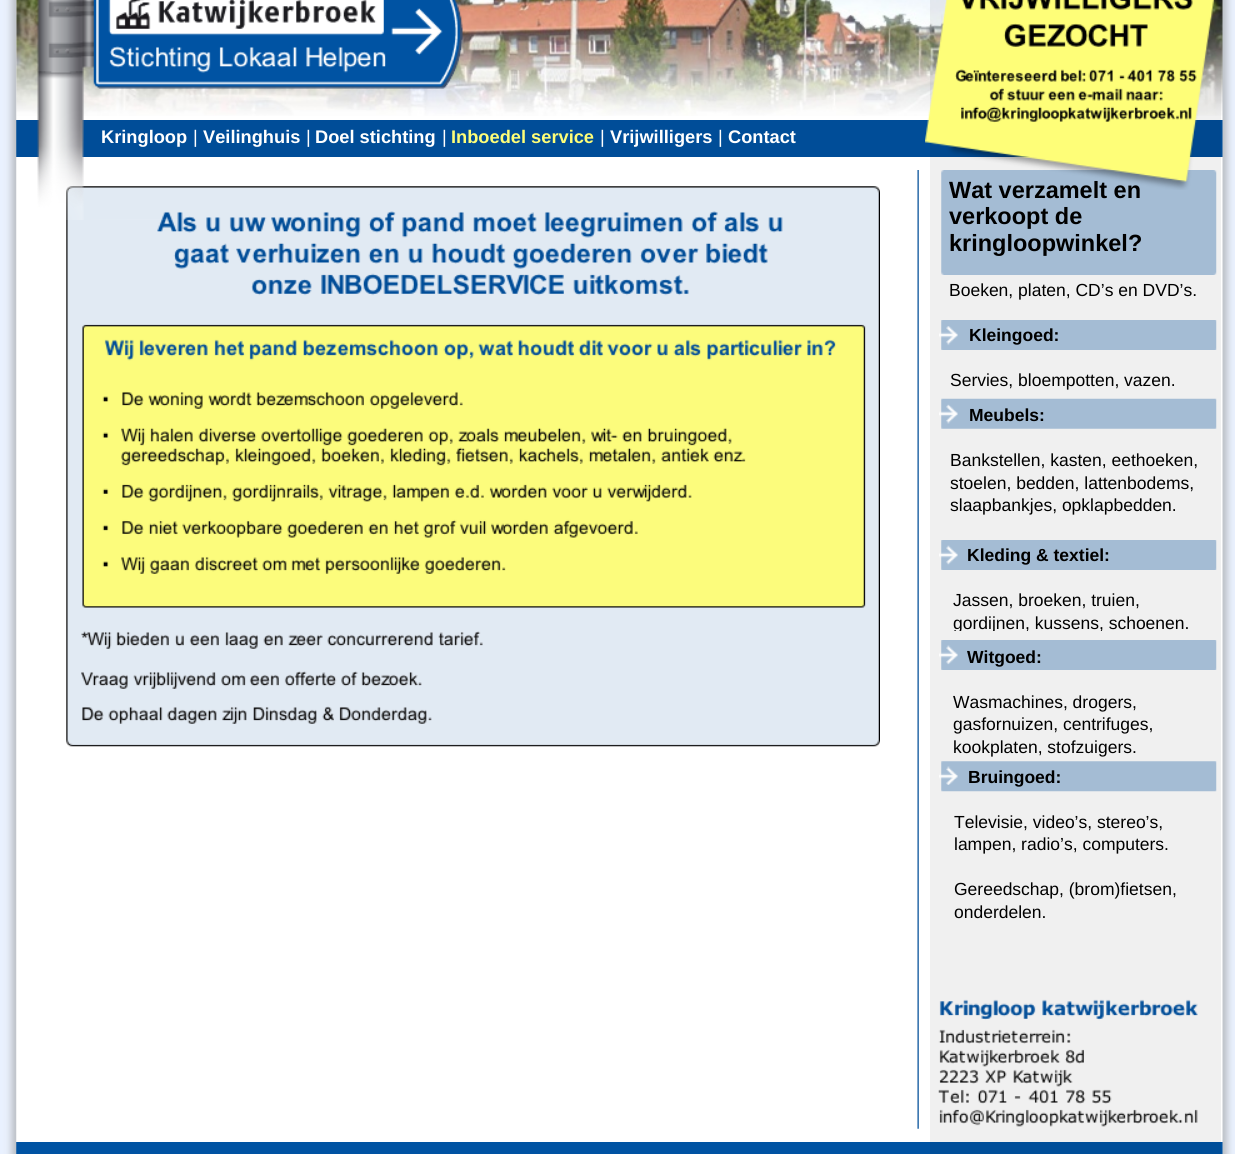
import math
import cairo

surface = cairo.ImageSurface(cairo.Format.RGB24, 1235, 1154)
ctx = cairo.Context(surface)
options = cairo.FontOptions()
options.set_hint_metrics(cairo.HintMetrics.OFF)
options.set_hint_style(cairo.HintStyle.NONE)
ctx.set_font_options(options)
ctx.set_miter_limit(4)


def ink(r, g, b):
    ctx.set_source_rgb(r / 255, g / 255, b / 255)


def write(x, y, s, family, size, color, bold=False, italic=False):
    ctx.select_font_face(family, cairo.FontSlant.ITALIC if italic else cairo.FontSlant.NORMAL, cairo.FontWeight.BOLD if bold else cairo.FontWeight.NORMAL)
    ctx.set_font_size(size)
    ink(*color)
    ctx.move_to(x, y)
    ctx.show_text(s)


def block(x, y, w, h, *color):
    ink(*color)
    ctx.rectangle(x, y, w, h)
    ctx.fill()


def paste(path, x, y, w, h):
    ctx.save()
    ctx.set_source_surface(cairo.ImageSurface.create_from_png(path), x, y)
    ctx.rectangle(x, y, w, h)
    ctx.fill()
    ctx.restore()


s1 = dict(family="Liberation Sans", size=23.5, color=(0, 0, 0), bold=True)
s2 = dict(family="Liberation Sans", size=18.25, color=(255, 255, 255), bold=True)
s3 = dict(family="Liberation Sans", size=18.25, color=(255, 255, 255))
s4 = dict(family="Liberation Sans", size=18.25, color=(254, 254, 120), bold=True)
s5 = dict(family="Liberation Sans", size=17.5, color=(0, 0, 0))
s6 = dict(family="Liberation Sans", size=17.5, color=(0, 0, 0), bold=True)

ink(255, 255, 255)
ctx.paint()
paste("pic2.png", 16, 0, 1207, 116)
block(16, 120, 1207, 37, 0, 77, 152)
block(16, 1142, 1207, 12, 0, 83, 163)
paste("pic1.png", 0, 0, 17, 1154)
paste("pic9.png", 66, 186, 814, 561)
paste("pic3.png", 37, 0, 426, 220)
ctx.set_source_rgba(0, 0, 0, 0.06)
ctx.rectangle(930, 0, 291, 1154)
ctx.fill()
paste("pic8.png", 941, 170, 276, 105)
write(949, 198, "Wat verzamelt en", **s1)
paste("pic4.png", 925, 0, 289, 190)
paste("pic5.png", 109, 46, 277, 27)
paste("pic6.png", 1222, 0, 13, 1154)
write(101, 143, "Kringloop", **s2)
write(193, 143, "|", **s3)
write(203, 143, "Veilinghuis", **s2)
write(306, 143, "|", **s3)
write(315, 143, "Doel stichting", **s2)
write(442, 143, "|", **s3)
write(451, 143, "Inboedel service", **s4)
write(600, 143, "|", **s3)
write(610, 143, "Vrijwilligers", **s2)
write(718, 143, "|", **s3)
write(728, 143, "Contact", **s2)
paste("pic7.png", 917, 170, 2, 959)
write(949, 224, "verkoopt de", **s1)
write(949, 251, "kringloopwinkel?", **s1)
write(949, 296, "Boeken, platen, CD’s en DVD’s.", **s5)
paste("pic10.png", 941, 320, 276, 30)
write(950, 386, "Servies, bloempotten, vazen.", **s5)
paste("pic12.png", 941, 398, 276, 31)
write(950, 466, "Bankstellen, kasten, eethoeken,", **s5)
write(950, 489, "stoelen, bedden, lattenbodems,", **s5)
write(950, 511, "slaapbankjes, opklapbedden.", **s5)
paste("pic10.png", 941, 540, 276, 30)
write(953, 606, "Jassen, broeken, truien,", **s5)
ctx.save()
ctx.rectangle(953, 544, 265, 87)
ctx.clip()
write(953, 629, "gordijnen, kussens, schoenen.", **s5)
ctx.restore()
paste("pic10.png", 941, 640, 276, 30)
write(953, 708, "Wasmachines, drogers,", **s5)
write(953, 730, "gasfornuizen, centrifuges,", **s5)
write(953, 753, "kookplaten, stofzuigers.", **s5)
paste("pic13.png", 941, 761, 276, 31)
paste("pic11.png", 939, 326, 19, 459)
write(969, 341, "Kleingoed:", **s6)
write(969, 421, "Meubels:", **s6)
write(967, 561, "Kleding & textiel:", **s6)
write(967, 663, "Witgoed:", **s6)
write(968, 783, "Bruingoed:", **s6)
write(954, 828, "Televisie, video’s, stereo’s,", **s5)
write(954, 850, "lampen, radio’s, computers.", **s5)
write(954, 895, "Gereedschap, (brom)fietsen,", **s5)
write(954, 918, "onderdelen.", **s5)
paste("pic14.png", 938, 999, 260, 128)
surface.write_to_png("screenshot.png")
